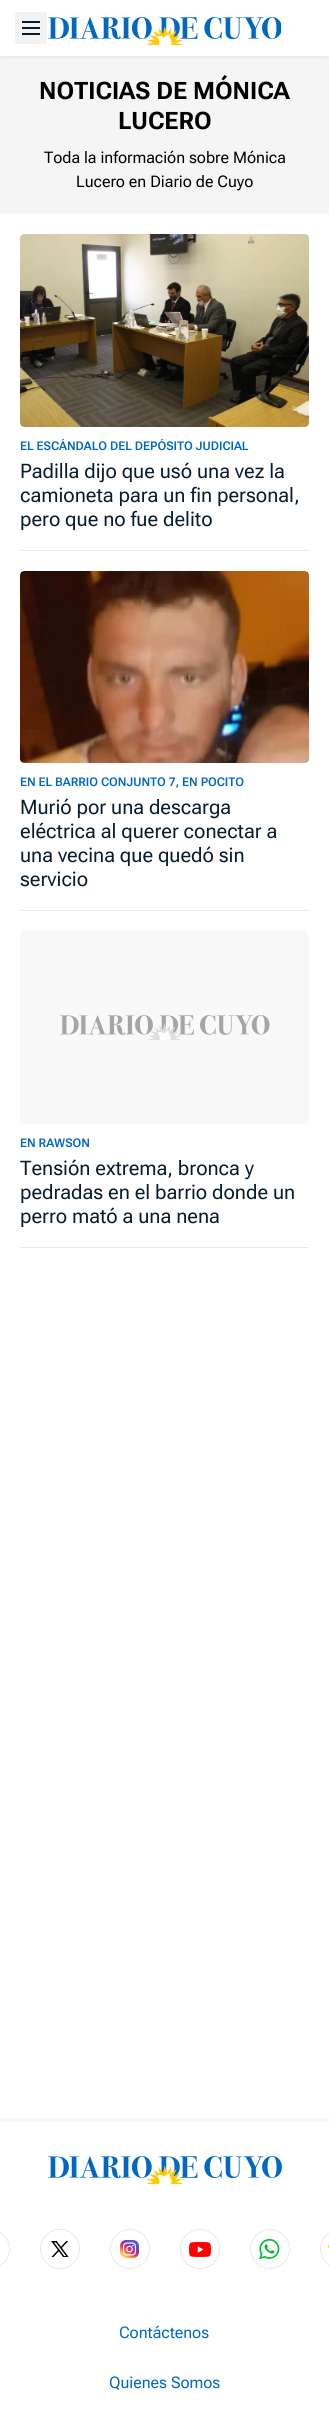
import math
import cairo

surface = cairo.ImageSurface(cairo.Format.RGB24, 329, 2422)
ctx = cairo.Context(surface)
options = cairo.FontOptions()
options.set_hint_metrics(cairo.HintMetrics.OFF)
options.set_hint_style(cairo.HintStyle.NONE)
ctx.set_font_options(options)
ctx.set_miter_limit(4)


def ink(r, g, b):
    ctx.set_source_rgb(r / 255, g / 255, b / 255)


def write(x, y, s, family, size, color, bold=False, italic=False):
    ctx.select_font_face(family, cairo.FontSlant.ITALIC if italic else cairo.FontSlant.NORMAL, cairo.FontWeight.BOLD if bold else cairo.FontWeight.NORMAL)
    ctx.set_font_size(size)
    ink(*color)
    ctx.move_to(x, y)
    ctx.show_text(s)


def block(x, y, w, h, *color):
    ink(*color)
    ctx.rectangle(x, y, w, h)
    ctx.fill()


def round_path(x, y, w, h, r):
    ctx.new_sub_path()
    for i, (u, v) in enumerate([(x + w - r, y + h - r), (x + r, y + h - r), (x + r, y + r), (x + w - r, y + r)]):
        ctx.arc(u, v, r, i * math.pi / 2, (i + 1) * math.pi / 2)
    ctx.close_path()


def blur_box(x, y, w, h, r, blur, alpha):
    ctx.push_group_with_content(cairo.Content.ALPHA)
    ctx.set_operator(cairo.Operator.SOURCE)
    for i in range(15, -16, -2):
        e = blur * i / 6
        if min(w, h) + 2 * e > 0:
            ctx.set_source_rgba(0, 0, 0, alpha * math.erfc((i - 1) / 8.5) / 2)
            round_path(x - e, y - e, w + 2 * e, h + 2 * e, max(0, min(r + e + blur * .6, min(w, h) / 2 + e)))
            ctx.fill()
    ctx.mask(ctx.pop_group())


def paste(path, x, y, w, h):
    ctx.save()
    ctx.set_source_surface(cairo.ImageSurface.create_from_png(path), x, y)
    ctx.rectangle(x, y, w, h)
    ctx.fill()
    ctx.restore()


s1 = dict(family="Roboto Flex", size=24, color=(0, 0, 0), bold=True)
s2 = dict(family="Roboto Flex", size=16, color=(0, 0, 0))
s3 = dict(family="Roboto Flex SemiBold", size=12, color=(1, 104, 193))
s4 = dict(family="Roboto Flex", size=20, color=(7, 28, 47))
s5 = dict(family="Roboto Flex", size=16, color=(1, 104, 193))

ink(255, 255, 255)
ctx.paint()
block(0, 56, 329, 158, 245, 245, 245)
ctx.save()
ctx.rectangle(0, 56, 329, 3)
ctx.clip()
ink(0, 0, 0)
blur_box(0, 3, 329, 56, 0, 1.5, 0.05)
ctx.restore()
ink(242, 242, 242)
round_path(15, 12, 32, 32, 2)
ctx.fill()
block(22, 21, 18, 2, 7, 28, 47)
block(22, 27, 18, 2, 7, 28, 47)
block(22, 33, 18, 2, 7, 28, 47)
paste("pic1.png", 48, 17, 233, 28)
write(39, 99, "NOTICIAS DE MÓNICA", **s1)
write(118, 129, "LUCERO", **s1)
write(44, 163, "Toda la información sobre Mónica", **s2)
write(76, 187, "Lucero en Diario de Cuyo", **s2)
paste("pic2.png", 20, 234, 289, 193)
ctx.save()
ctx.rectangle(20, 439, 228, 14)
ctx.clip()
write(20, 450, "EL ESCÁNDALO DEL DEPÓSITO JUDICIAL", **s3)
ctx.restore()
write(20, 478, "Padilla dijo que usó una vez la", **s4)
write(20, 502, "camioneta para un fin personal,", **s4)
write(20, 526, "pero que no fue delito", **s4)
block(20, 550, 289, 1, 233, 233, 233)
paste("pic3.png", 20, 571, 289, 192)
write(20, 786, "EN EL BARRIO CONJUNTO 7, EN POCITO", **s3)
write(20, 814, "Murió por una descarga", **s4)
write(20, 838, "eléctrica al querer conectar a", **s4)
write(20, 862, "una vecina que quedó sin", **s4)
write(20, 886, "servicio", **s4)
block(20, 910, 289, 1, 233, 233, 233)
ink(248, 248, 248)
round_path(20, 931, 289, 193, 4)
ctx.fill()
paste("pic4.png", 60, 1015, 210, 25)
write(20, 1147, "EN RAWSON", **s3)
write(20, 1175, "Tensión extrema, bronca y", **s4)
write(20, 1199, "pedradas en el barrio donde un", **s4)
write(20, 1223, "perro mató a una nena", **s4)
block(20, 1247, 289, 1, 233, 233, 233)
block(0, 2118, 329, 4, 248, 248, 248)
paste("pic5.png", 48, 2156, 234, 28)
round_path(-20.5, 2229.5, 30, 39, 19.5)
ink(233, 233, 233)
ctx.set_line_width(1)
ctx.stroke()
ctx.arc(60, 2249, 19.5, 0, 2 * math.pi)
ctx.stroke()
paste("pic6.png", 51, 2241, 18, 16)
ctx.arc(130, 2249, 19.5, 0, 2 * math.pi)
ctx.stroke()
paste("pic7.png", 120, 2240, 19, 18)
ctx.arc(200, 2249, 19.5, 0, 2 * math.pi)
ctx.stroke()
paste("pic8.png", 189, 2242, 22, 15)
ctx.arc(270, 2249, 19.5, 0, 2 * math.pi)
ctx.stroke()
paste("pic9.png", 259, 2239, 21, 20)
round_path(320.5, 2229.5, 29, 39, 19.5)
ctx.stroke()
paste("pic10.png", 328, 2245, 1, 4)
write(119, 2338, "Contáctenos", **s5)
write(109, 2388, "Quienes Somos", **s5)
surface.write_to_png("screenshot.png")
